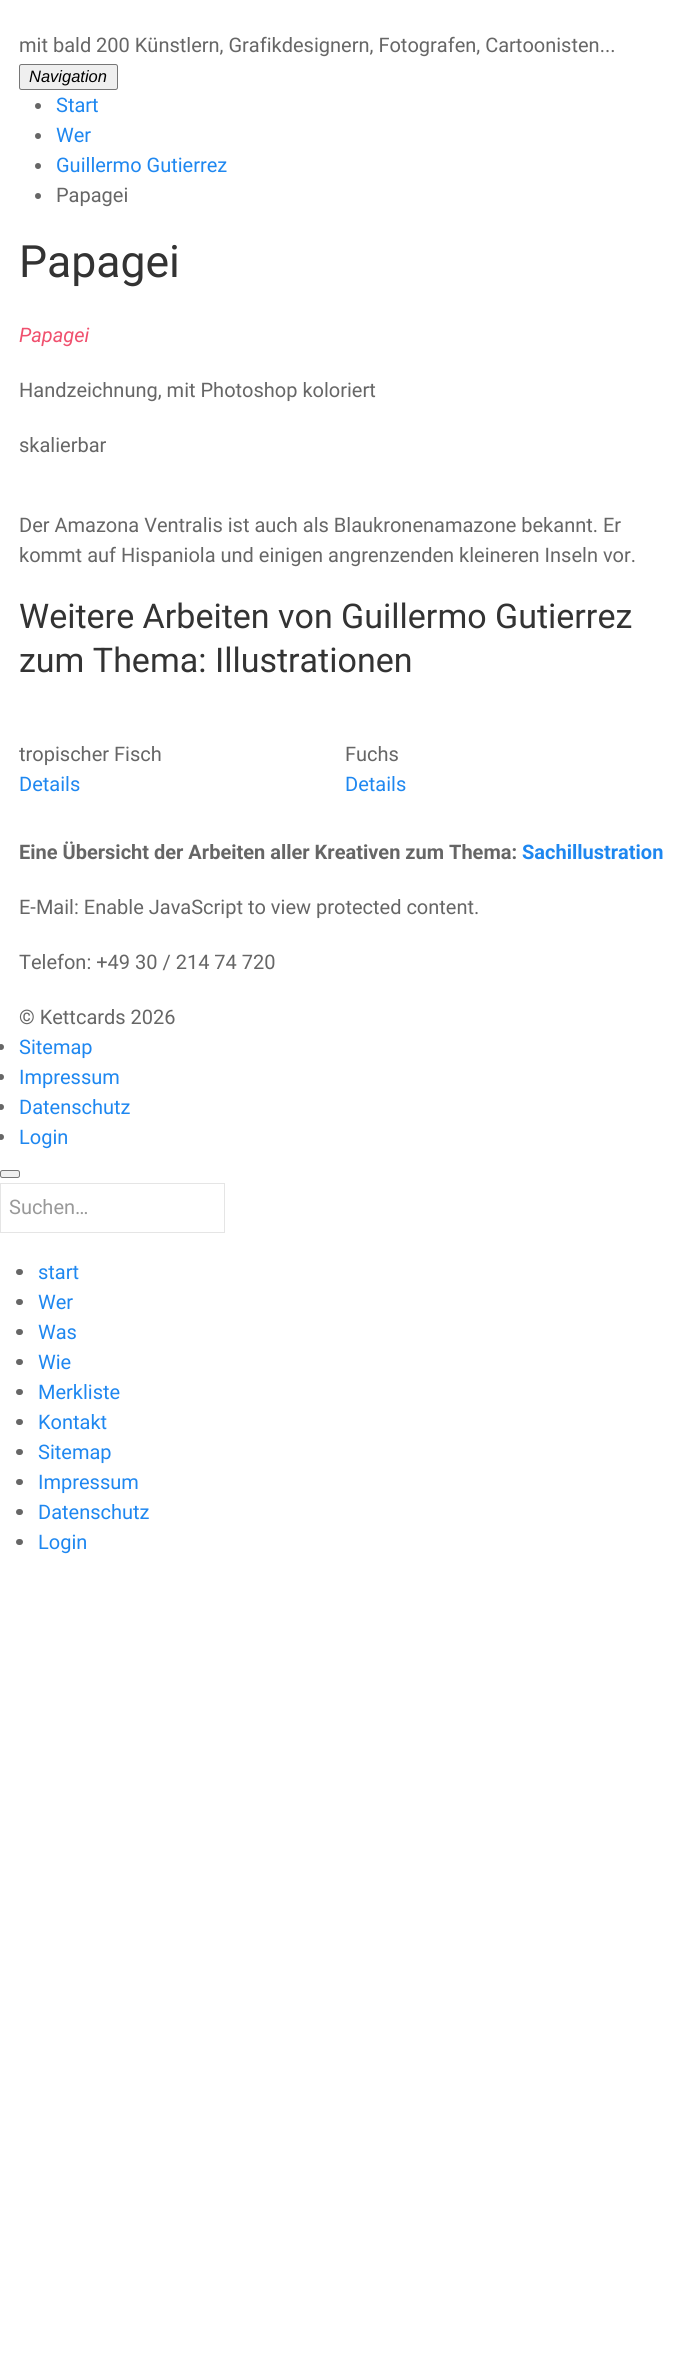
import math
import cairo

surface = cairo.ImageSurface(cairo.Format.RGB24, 690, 2366)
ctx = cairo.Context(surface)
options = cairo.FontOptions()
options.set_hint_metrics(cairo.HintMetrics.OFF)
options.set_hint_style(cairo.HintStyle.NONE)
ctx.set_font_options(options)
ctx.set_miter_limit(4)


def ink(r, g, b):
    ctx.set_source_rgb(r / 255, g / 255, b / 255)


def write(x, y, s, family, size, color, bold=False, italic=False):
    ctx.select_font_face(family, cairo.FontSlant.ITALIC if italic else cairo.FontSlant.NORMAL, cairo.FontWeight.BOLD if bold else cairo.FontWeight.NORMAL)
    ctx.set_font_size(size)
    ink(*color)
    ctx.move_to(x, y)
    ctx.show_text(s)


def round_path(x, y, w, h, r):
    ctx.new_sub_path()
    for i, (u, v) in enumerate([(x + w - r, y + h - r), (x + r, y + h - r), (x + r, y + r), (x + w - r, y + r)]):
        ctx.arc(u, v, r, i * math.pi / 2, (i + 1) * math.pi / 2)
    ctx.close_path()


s1 = dict(family="Roboto", size=20, color=(102, 102, 102))
s2 = dict(family="Liberation Sans", size=16.5, color=(0, 0, 0), italic=True)
s3 = dict(family="Roboto", size=20, color=(30, 135, 240))
s4 = dict(family="Roboto", size=44.5, color=(51, 51, 51))
s5 = dict(family="Roboto", size=20, color=(240, 80, 110), italic=True)
s6 = dict(family="Roboto", size=34, color=(51, 51, 51))
s7 = dict(family="Roboto", size=20, color=(102, 102, 102), bold=True)
s8 = dict(family="Roboto", size=20, color=(30, 135, 240), bold=True)
s9 = dict(family="Roboto", size=20, color=(153, 153, 153))

ink(255, 255, 255)
ctx.paint()
write(19, 52, "mit bald 200 Künstlern, Grafikdesignern, Fotografen, Cartoonisten...", **s1)
ink(239, 239, 239)
round_path(19.5, 64.5, 98, 25, 2)
ctx.fill_preserve()
ink(118, 118, 118)
ctx.set_line_width(1)
ctx.stroke()
write(29, 82, "Navigation", **s2)
ink(102, 102, 102)
ctx.new_path()
ctx.arc(38, 106, 3, 0, 2 * math.pi)
ctx.fill()
write(56, 112, "Start", **s3)
ink(102, 102, 102)
ctx.new_path()
ctx.arc(38, 136, 3, 0, 2 * math.pi)
ctx.fill()
write(56, 142, "Wer", **s3)
ink(102, 102, 102)
ctx.new_path()
ctx.arc(38, 166, 3, 0, 2 * math.pi)
ctx.fill()
write(56, 172, "Guillermo Gutierrez", **s3)
ink(102, 102, 102)
ctx.new_path()
ctx.arc(38, 196, 3, 0, 2 * math.pi)
ctx.fill()
write(56, 202, "Papagei", **s1)
write(19, 277, "Papagei", **s4)
write(19, 342, "Papagei", **s5)
write(19, 397, "Handzeichnung, mit Photoshop koloriert", **s1)
write(19, 452, "skalierbar", **s1)
write(19, 532, "Der Amazona Ventralis ist auch als Blaukronenamazone bekannt. Er", **s1)
write(19, 562, "kommt auf Hispaniola und einigen angrenzenden kleineren Inseln vor.", **s1)
write(19, 628, "Weitere Arbeiten von Guillermo Gutierrez", **s6)
write(19, 672, "zum Thema: Illustrationen", **s6)
write(19, 761, "tropischer Fisch", **s1)
write(19, 791, "Details", **s3)
write(345, 761, "Fuchs", **s1)
write(345, 791, "Details", **s3)
write(19, 859, "Eine Übersicht der Arbeiten aller Kreativen zum Thema:", **s7)
write(522, 859, "Sachillustration", **s8)
write(19, 914, "E-Mail: Enable JavaScript to view protected content.", **s1)
write(19, 969, "Telefon: +49 30 / 214 74 720", **s1)
write(19, 1024, "© Kettcards 2026", **s1)
ctx.new_path()
ctx.arc(1, 1047, 3, 0, 2 * math.pi)
ctx.fill()
write(19, 1054, "Sitemap", **s3)
ink(102, 102, 102)
ctx.new_path()
ctx.arc(1, 1077, 3, 0, 2 * math.pi)
ctx.fill()
write(19, 1084, "Impressum", **s3)
ink(102, 102, 102)
ctx.new_path()
ctx.arc(1, 1107, 3, 0, 2 * math.pi)
ctx.fill()
write(19, 1114, "Datenschutz", **s3)
ink(102, 102, 102)
ctx.new_path()
ctx.arc(1, 1137, 3, 0, 2 * math.pi)
ctx.fill()
write(19, 1144, "Login", **s3)
ink(239, 239, 239)
round_path(0.5, 1170.5, 19, 7, 2)
ctx.fill_preserve()
ink(118, 118, 118)
ctx.stroke()
ctx.rectangle(0.5, 1183.5, 224, 49)
ink(229, 229, 229)
ctx.stroke()
write(9, 1214, "Suchen…", **s9)
ink(102, 102, 102)
round_path(16, 1269, 7, 6, 3)
ctx.fill()
write(38, 1279, "start", **s3)
ink(102, 102, 102)
round_path(16, 1299, 7, 6, 3)
ctx.fill()
write(38, 1309, "Wer", **s3)
ink(102, 102, 102)
round_path(16, 1329, 7, 6, 3)
ctx.fill()
write(38, 1339, "Was", **s3)
ink(102, 102, 102)
round_path(16, 1359, 7, 6, 3)
ctx.fill()
write(38, 1369, "Wie", **s3)
ink(102, 102, 102)
round_path(16, 1389, 7, 6, 3)
ctx.fill()
write(38, 1399, "Merkliste", **s3)
ink(102, 102, 102)
round_path(16, 1419, 7, 6, 3)
ctx.fill()
write(38, 1429, "Kontakt", **s3)
ink(102, 102, 102)
round_path(16, 1449, 7, 6, 3)
ctx.fill()
write(38, 1459, "Sitemap", **s3)
ink(102, 102, 102)
round_path(16, 1479, 7, 6, 3)
ctx.fill()
write(38, 1489, "Impressum", **s3)
ink(102, 102, 102)
round_path(16, 1509, 7, 6, 3)
ctx.fill()
write(38, 1519, "Datenschutz", **s3)
ink(102, 102, 102)
round_path(16, 1539, 7, 6, 3)
ctx.fill()
write(38, 1549, "Login", **s3)
surface.write_to_png("screenshot.png")
